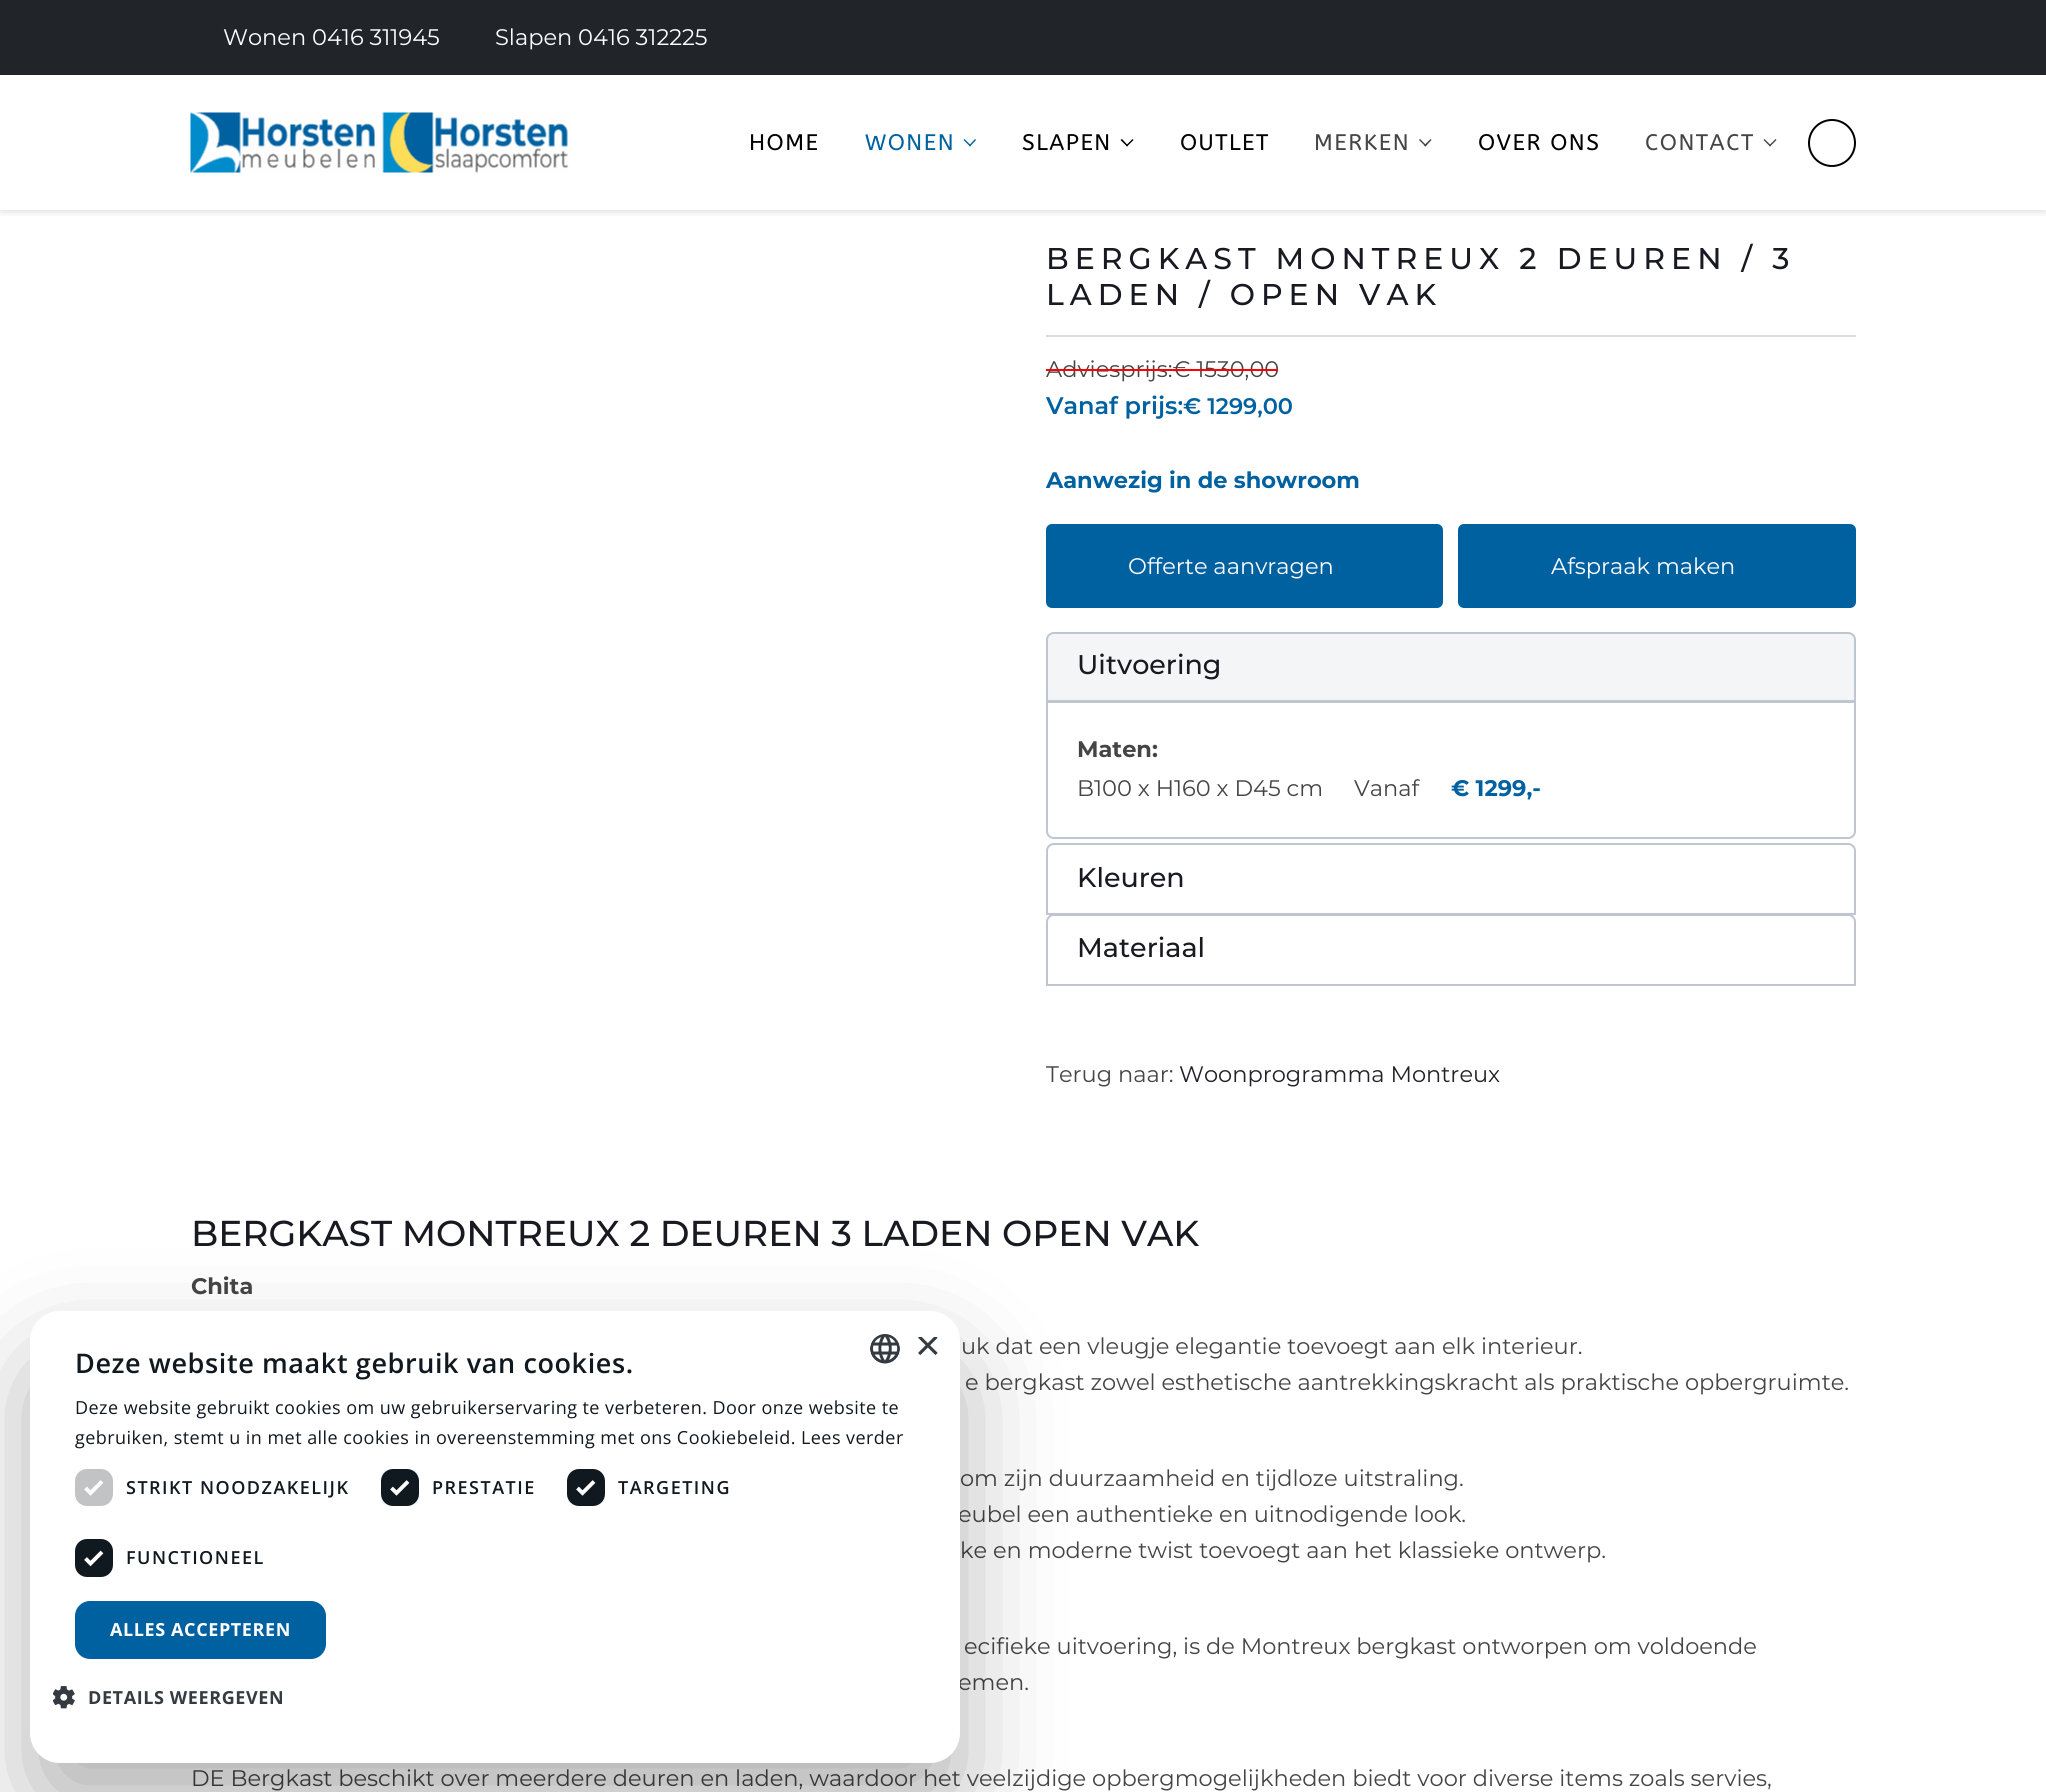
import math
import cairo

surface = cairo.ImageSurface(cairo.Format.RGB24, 2046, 1792)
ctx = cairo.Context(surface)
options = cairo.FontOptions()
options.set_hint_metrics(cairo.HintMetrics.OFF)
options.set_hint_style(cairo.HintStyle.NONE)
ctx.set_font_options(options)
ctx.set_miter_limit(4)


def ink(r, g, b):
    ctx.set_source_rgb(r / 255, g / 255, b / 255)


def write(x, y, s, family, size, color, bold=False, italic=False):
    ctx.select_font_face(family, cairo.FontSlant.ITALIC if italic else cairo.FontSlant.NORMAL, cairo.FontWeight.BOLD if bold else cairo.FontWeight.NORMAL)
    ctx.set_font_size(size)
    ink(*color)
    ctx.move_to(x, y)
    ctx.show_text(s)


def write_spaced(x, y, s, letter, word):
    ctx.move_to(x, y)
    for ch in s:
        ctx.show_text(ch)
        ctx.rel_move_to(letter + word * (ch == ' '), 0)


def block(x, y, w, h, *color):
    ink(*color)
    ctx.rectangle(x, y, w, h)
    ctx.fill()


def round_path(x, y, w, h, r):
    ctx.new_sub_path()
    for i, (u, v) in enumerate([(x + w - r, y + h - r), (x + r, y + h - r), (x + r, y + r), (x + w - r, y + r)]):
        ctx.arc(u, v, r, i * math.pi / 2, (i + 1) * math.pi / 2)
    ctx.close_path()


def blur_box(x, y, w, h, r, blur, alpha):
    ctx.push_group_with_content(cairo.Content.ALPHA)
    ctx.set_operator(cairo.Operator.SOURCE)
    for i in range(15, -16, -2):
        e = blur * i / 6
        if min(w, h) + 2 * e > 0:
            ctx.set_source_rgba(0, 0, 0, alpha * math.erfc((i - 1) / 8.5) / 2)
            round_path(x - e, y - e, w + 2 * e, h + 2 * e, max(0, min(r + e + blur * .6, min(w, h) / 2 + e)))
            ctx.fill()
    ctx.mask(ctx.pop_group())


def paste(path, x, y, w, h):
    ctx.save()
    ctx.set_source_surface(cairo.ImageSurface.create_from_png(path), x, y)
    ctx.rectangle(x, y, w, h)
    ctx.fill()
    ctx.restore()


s1 = dict(family="Montserrat", size=22.5, color=(255, 255, 255))
s2 = dict(family="Montserrat", size=22.5, color=(69, 69, 69))
s3 = dict(family="Montserrat SemiBold", size=24, color=(0, 97, 161))
s4 = dict(family="Montserrat SemiBold", size=22.5, color=(0, 97, 161))
s5 = dict(family="Montserrat", size=22.5, color=(0, 97, 161), bold=True)
s6 = dict(family="Montserrat Medium", size=27, color=(24, 25, 33))
s7 = dict(family="Montserrat", size=22.5, color=(69, 69, 69), bold=True)
s8 = dict(family="Montserrat", size=22.5, color=(33, 33, 41))
s9 = dict(family="Montserrat Medium", size=36, color=(24, 25, 33))
s10 = dict(family="Liberation Sans", size=44, color=(52, 59, 65))

ink(255, 255, 255)
ctx.paint()
block(0, 0, 2046, 75, 33, 37, 41)
write(223, 45, "Wonen 0416 311945", **s1)
write(495, 45, "Slapen 0416 312225", **s1)
ctx.save()
ctx.rectangle(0, 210, 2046, 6)
ctx.clip()
ink(0, 0, 0)
blur_box(0, 78, 2046, 135, 0, 3, 0.1)
ctx.restore()
paste("pic1.png", 190, 112, 379, 61)
ctx.select_font_face("ABeeZee")
ink(0, 0, 0)
write_spaced(749, 150, "HOME", 1.5, 0)
ink(0, 97, 161)
write_spaced(865, 150, "WONEN", 1.5, 0)
ctx.new_path()
ctx.move_to(975, 139)
ctx.line_to(976, 140)
ctx.line_to(970, 146.5)
ctx.line_to(969, 145.5)
ctx.close_path()
ctx.fill()
ctx.new_path()
ctx.move_to(964.5, 139)
ctx.line_to(971, 145.5)
ctx.line_to(970, 146.5)
ctx.line_to(963.5, 140)
ctx.close_path()
ctx.fill()
ink(0, 0, 0)
write_spaced(1022, 150, "SLAPEN", 1.5, 0)
ctx.new_path()
ctx.move_to(1132.5, 139)
ctx.line_to(1133.5, 140)
ctx.line_to(1127, 146.5)
ctx.line_to(1126, 145.5)
ctx.close_path()
ctx.fill()
ctx.new_path()
ctx.move_to(1122, 139)
ctx.line_to(1128, 145.5)
ctx.line_to(1127, 146.5)
ctx.line_to(1120.5, 140)
ctx.close_path()
ctx.fill()
write_spaced(1180, 150, "OUTLET", 1.5, 0)
ink(69, 69, 69)
write_spaced(1314, 150, "MERKEN", 1.5, 0)
ctx.new_path()
ctx.move_to(1430.5, 139)
ctx.line_to(1431.5, 140)
ctx.line_to(1425.5, 146.5)
ctx.line_to(1424, 145.5)
ctx.close_path()
ctx.fill()
ctx.new_path()
ctx.move_to(1420, 139)
ctx.line_to(1426.5, 145.5)
ctx.line_to(1425.5, 146.5)
ctx.line_to(1419, 140)
ctx.close_path()
ctx.fill()
ink(0, 0, 0)
write_spaced(1478, 150, "OVER ONS", 1.5, 0)
ink(69, 69, 69)
write_spaced(1645, 150, "CONTACT", 1.5, 0)
ctx.new_path()
ctx.move_to(1775.5, 139)
ctx.line_to(1776.5, 140)
ctx.line_to(1770, 146.5)
ctx.line_to(1769, 145.5)
ctx.close_path()
ctx.fill()
ctx.new_path()
ctx.move_to(1764.5, 139)
ctx.line_to(1771, 145.5)
ctx.line_to(1770, 146.5)
ctx.line_to(1763.5, 140)
ctx.close_path()
ctx.fill()
ctx.arc(1832, 143, 23, 0, 2 * math.pi)
ink(0, 0, 0)
ctx.stroke()
block(1046, 335, 810, 2, 219, 222, 225)
ctx.select_font_face("Montserrat Medium")
ctx.set_font_size(30)
ink(24, 25, 33)
write_spaced(1046, 269, "BERGKAST MONTREUX 2 DEUREN / 3", 6, 0)
write_spaced(1046, 305, "LADEN / OPEN VAK", 6, 0)
write(1046, 377, "Adviesprijs:€ 1530,00", **s2)
block(1046, 369, 232, 2, 255, 0, 0)
write(1046, 414, "Vanaf prijs:", **s3)
write(1183, 414, "€ 1299,00", **s4)
write(1046, 488, "Aanwezig in de showroom", **s5)
round_path(1047, 525, 395, 82, 5)
ctx.fill_preserve()
ctx.stroke()
write(1128, 574, "Offerte aanvragen", **s1)
ink(0, 97, 161)
round_path(1459, 525, 396, 82, 5)
ctx.fill_preserve()
ctx.stroke()
write(1551, 574, "Afspraak maken", **s1)
ink(244, 245, 246)
ctx.new_path()
ctx.move_to(1054, 633)
ctx.line_to(1848, 633)
ctx.curve_to(1852, 633, 1855, 636, 1855, 640)
ctx.line_to(1855, 701)
ctx.line_to(1047, 701)
ctx.line_to(1047, 640)
ctx.curve_to(1047, 636, 1050, 633, 1054, 633)
ctx.close_path()
ctx.fill_preserve()
ink(192, 198, 207)
ctx.stroke()
write(1077, 674, "Uitvoering", **s6)
ink(255, 255, 255)
ctx.new_path()
ctx.move_to(1047, 702)
ctx.line_to(1855, 702)
ctx.line_to(1855, 831)
ctx.curve_to(1855, 835, 1852, 838, 1848, 838)
ctx.line_to(1054, 838)
ctx.curve_to(1050, 838, 1047, 835, 1047, 831)
ctx.close_path()
ctx.fill_preserve()
ink(192, 198, 207)
ctx.stroke()
write(1077, 757, "Maten:", **s7)
write(1077, 796, "B100 x H160 x D45 cm", **s2)
write(1354, 796, "Vanaf", **s2)
write(1451, 796, "€ 1299,-", **s5)
ctx.new_path()
ctx.move_to(1054, 844)
ctx.line_to(1848, 844)
ctx.curve_to(1852, 844, 1855, 847, 1855, 851)
ctx.line_to(1855, 914)
ctx.line_to(1047, 914)
ctx.line_to(1047, 851)
ctx.curve_to(1047, 847, 1050, 844, 1054, 844)
ctx.close_path()
ink(192, 198, 207)
ctx.stroke()
write(1077, 887, "Kleuren", **s6)
ink(255, 255, 255)
ctx.new_path()
ctx.move_to(1054, 915)
ctx.line_to(1848, 915)
ctx.curve_to(1852, 915, 1855, 918, 1855, 922)
ctx.line_to(1855, 985)
ctx.line_to(1047, 985)
ctx.line_to(1047, 922)
ctx.curve_to(1047, 918, 1050, 915, 1054, 915)
ctx.close_path()
ctx.fill_preserve()
ink(192, 198, 207)
ctx.stroke()
write(1077, 957, "Materiaal", **s6)
write(1046, 1082, "Terug naar:", **s2)
write(1179, 1082, "Woonprogramma Montreux", **s8)
write(191, 1246, "BERGKAST MONTREUX 2 DEUREN 3 LADEN OPEN VAK", **s9)
write(191, 1294, "Chita", **s7)
write(961, 1354, "uk dat een vleugje elegantie toevoegt aan elk interieur.", **s2)
write(965, 1390, "e bergkast zowel esthetische aantrekkingskracht als praktische opbergruimte.", **s2)
write(960, 1486, "om zijn duurzaamheid en tijdloze uitstraling.", **s2)
write(958, 1522, "eubel een authentieke en uitnodigende look.", **s2)
write(960, 1558, "ke en moderne twist toevoegt aan het klassieke ontwerp.", **s2)
write(964, 1654, "ecifieke uitvoering, is de Montreux bergkast ontworpen om voldoende", **s2)
write(958, 1690, "emen.", **s2)
write(191, 1786, "DE Bergkast beschikt over meerdere deuren en laden, waardoor het veelzijdige opbergmogelijkheden biedt voor diverse items zoals servies,", **s2)
ink(0, 0, 0)
blur_box(30, 1359, 930, 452, 30, 51, 0.3)
ink(255, 255, 255)
round_path(30, 1311, 930, 452, 30)
ctx.fill()
paste("pic2.png", 870, 1334, 30, 30)
ctx.save()
ctx.rectangle(915, 1337, 23, 22)
ctx.clip()
write(915, 1360, "×", **s10)
ctx.restore()
ctx.select_font_face("Open Sans SemiBold")
ctx.set_font_size(27)
ink(16, 24, 32)
write_spaced(75, 1373, "Deze website maakt gebruik van cookies.", 0.6, 0)
ctx.select_font_face("Open Sans")
ctx.set_font_size(18)
write_spaced(75, 1414, "Deze website gebruikt cookies om uw gebruikerservaring te verbeteren. Door onze website te", 0.45, 0)
write_spaced(75, 1444, "gebruiken, stemt u in met alle cookies in overeenstemming met ons Cookiebeleid. Lees verder", 0.45, 0)
ink(193, 195, 197)
round_path(75, 1469, 38, 37, 12)
ctx.fill()
ctx.new_path()
ctx.move_to(85.5, 1488)
ctx.line_to(90.5, 1493)
ctx.line_to(102, 1481.5)
ink(255, 255, 255)
ctx.set_line_width(3.9)
ctx.stroke()
ctx.select_font_face("Open Sans SemiBold")
ink(16, 24, 32)
write_spaced(126, 1494, "STRIKT NOODZAKELIJK", 1.5, 0)
round_path(382.5, 1470.5, 35, 34, 10.5)
ctx.fill_preserve()
ctx.set_line_width(3)
ctx.stroke()
ctx.new_path()
ctx.move_to(391.5, 1488)
ctx.line_to(396.5, 1493)
ctx.line_to(408, 1481.5)
ink(255, 255, 255)
ctx.set_line_width(3.9)
ctx.stroke()
ink(16, 24, 32)
write_spaced(432, 1494, "PRESTATIE", 1.5, 0)
round_path(568.5, 1470.5, 35, 34, 10.5)
ctx.fill_preserve()
ctx.set_line_width(3)
ctx.stroke()
ctx.new_path()
ctx.move_to(577.5, 1488)
ctx.line_to(582.5, 1493)
ctx.line_to(594, 1481.5)
ink(255, 255, 255)
ctx.set_line_width(3.9)
ctx.stroke()
ink(16, 24, 32)
write_spaced(618, 1494, "TARGETING", 1.5, 0)
round_path(76.5, 1540.5, 35, 35, 10.5)
ctx.fill_preserve()
ctx.set_line_width(3)
ctx.stroke()
ctx.new_path()
ctx.move_to(85.5, 1558.5)
ctx.line_to(90.5, 1563.5)
ctx.line_to(102, 1552)
ink(255, 255, 255)
ctx.set_line_width(3.9)
ctx.stroke()
ink(16, 24, 32)
write_spaced(126, 1564, "FUNCTIONEEL", 1.5, 0)
ink(0, 97, 161)
round_path(75, 1601, 251, 58, 15)
ctx.fill()
ctx.select_font_face("Open Sans", cairo.FontSlant.NORMAL, cairo.FontWeight.BOLD)
ink(255, 255, 255)
write_spaced(110, 1636, "ALLES ACCEPTEREN", 0.6, 0)
paste("pic3.png", 53, 1686, 22, 23)
ink(52, 59, 65)
write_spaced(88, 1704, "DETAILS WEERGEVEN", 0.6, 0)
surface.write_to_png("screenshot.png")
